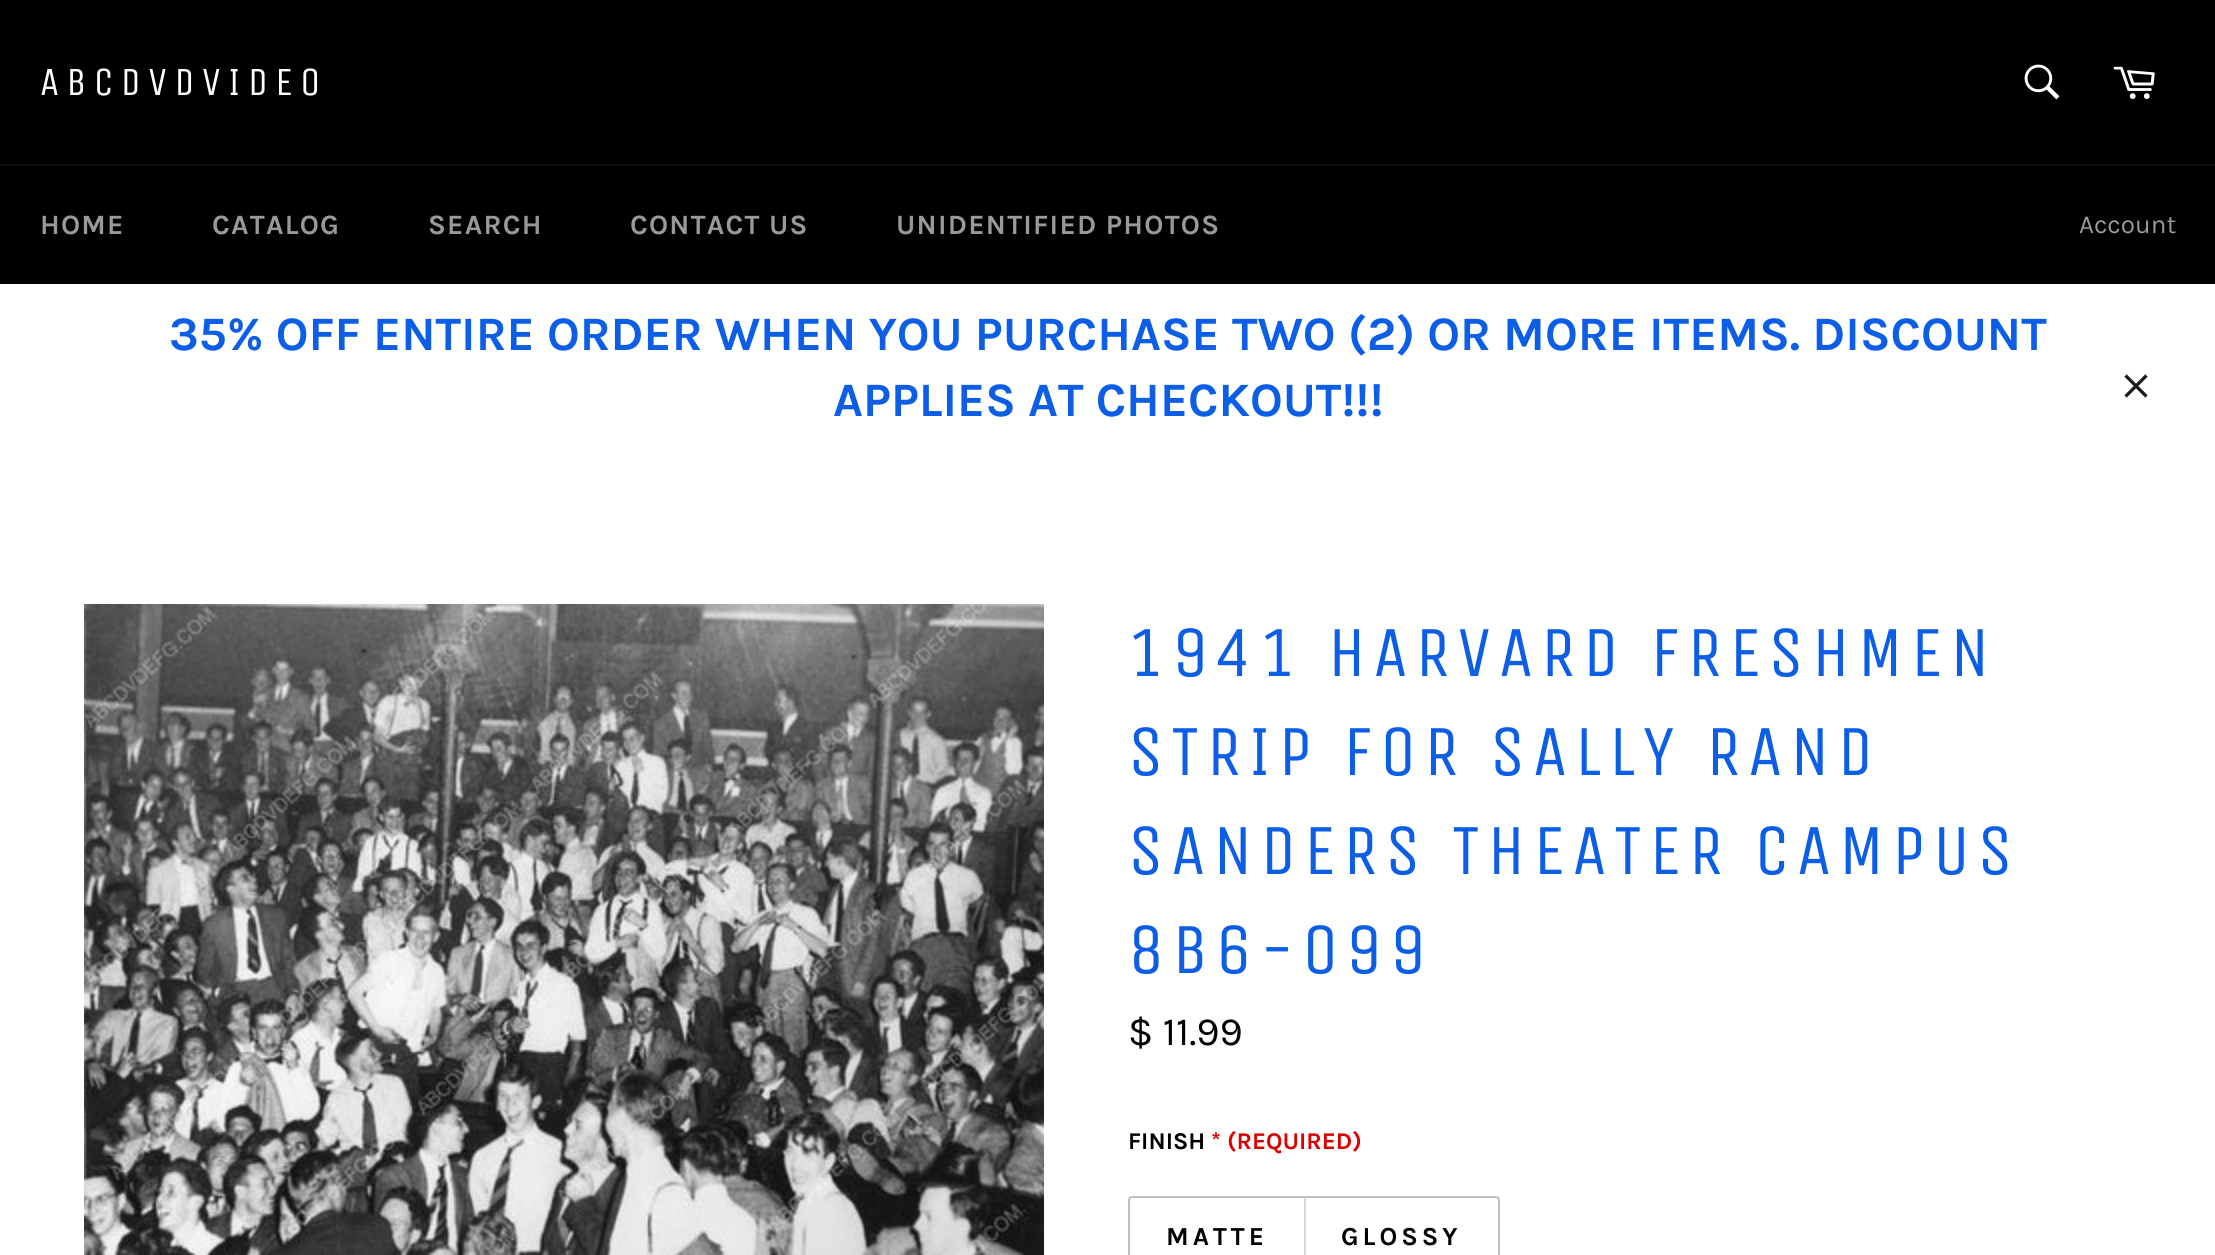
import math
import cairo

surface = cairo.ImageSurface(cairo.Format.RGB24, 2215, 1255)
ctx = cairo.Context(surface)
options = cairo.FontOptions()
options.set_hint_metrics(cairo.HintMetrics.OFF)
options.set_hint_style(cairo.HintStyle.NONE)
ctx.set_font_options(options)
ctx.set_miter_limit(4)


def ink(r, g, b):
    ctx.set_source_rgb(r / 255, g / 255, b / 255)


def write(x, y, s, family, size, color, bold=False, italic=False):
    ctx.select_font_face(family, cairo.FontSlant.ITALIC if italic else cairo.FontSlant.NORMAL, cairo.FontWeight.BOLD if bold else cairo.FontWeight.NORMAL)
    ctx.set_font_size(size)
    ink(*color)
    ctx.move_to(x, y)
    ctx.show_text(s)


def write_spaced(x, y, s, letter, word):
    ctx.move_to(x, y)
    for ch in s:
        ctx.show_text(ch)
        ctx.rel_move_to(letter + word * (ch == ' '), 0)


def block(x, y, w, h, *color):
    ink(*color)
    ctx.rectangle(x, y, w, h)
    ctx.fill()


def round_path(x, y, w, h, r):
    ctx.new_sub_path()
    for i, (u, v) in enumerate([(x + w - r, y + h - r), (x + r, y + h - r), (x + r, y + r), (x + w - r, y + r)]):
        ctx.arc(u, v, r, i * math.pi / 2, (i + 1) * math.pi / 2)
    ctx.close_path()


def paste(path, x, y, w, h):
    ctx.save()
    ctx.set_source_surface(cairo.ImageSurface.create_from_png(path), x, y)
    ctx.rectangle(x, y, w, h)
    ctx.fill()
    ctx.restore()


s1 = dict(family="Karla", size=26, color=(153, 153, 153))
s2 = dict(family="Karla", size=48, color=(13, 94, 230), bold=True)
s3 = dict(family="Karla", size=40, color=(0, 0, 0))
s4 = dict(family="Karla", size=24, color=(0, 0, 0), bold=True)
s5 = dict(family="Karla", size=24, color=(221, 0, 0), bold=True)

ink(255, 255, 255)
ctx.paint()
block(0, 0, 2215, 164, 0, 0, 0)
ctx.select_font_face("Unica One")
ctx.set_font_size(40)
ink(255, 255, 255)
write_spaced(40, 95, "ABCDVDVIDEO", 7.2, 0)
paste("pic1.png", 2024, 64, 36, 36)
paste("pic2.png", 2113, 66, 42, 33)
block(0, 166, 2215, 118, 0, 0, 0)
block(0, 164, 2215, 2, 13, 13, 13)
ctx.select_font_face("Karla", cairo.FontSlant.NORMAL, cairo.FontWeight.BOLD)
ctx.set_font_size(28)
ink(153, 153, 153)
write_spaced(40, 234, "HOME", 1.25, 0)
write_spaced(212, 234, "CATALOG", 1.25, 0)
write_spaced(428, 234, "SEARCH", 1.25, 0)
write_spaced(630, 234, "CONTACT US", 1.25, 0)
write_spaced(896, 234, "UNIDENTIFIED PHOTOS", 1.25, 0)
write(2079, 233, "Account", **s1)
write(169, 350, "35% OFF ENTIRE ORDER WHEN YOU PURCHASE TWO (2) OR MORE ITEMS. DISCOUNT", **s2)
write(833, 416, "APPLIES AT CHECKOUT!!!", **s2)
paste("pic3.png", 2124, 374, 24, 24)
paste("pic4.png", 84, 604, 960, 651)
ctx.select_font_face("Unica One")
ctx.set_font_size(72)
write_spaced(1128, 676, "1941 HARVARD FRESHMEN", 7.2, 0)
write_spaced(1128, 775, "STRIP FOR SALLY RAND", 7.2, 0)
write_spaced(1128, 874, "SANDERS THEATER CAMPUS", 7.2, 0)
write_spaced(1128, 973, "8B6-099", 7.2, 0)
write(1128, 1045, "$ 11.99", **s3)
write(1128, 1149, "FINISH", **s4)
write(1211, 1149, "* (REQUIRED)", **s5)
round_path(1129, 1197, 370, 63, 3)
ink(191, 191, 191)
ctx.stroke()
ctx.set_font_size(26)
ink(0, 0, 0)
write_spaced(1166, 1245, "MATTE", 4, 0)
block(1304, 1198, 2, 57, 217, 217, 217)
ink(0, 0, 0)
write_spaced(1341, 1245, "GLOSSY", 4, 0)
surface.write_to_png("screenshot.png")
